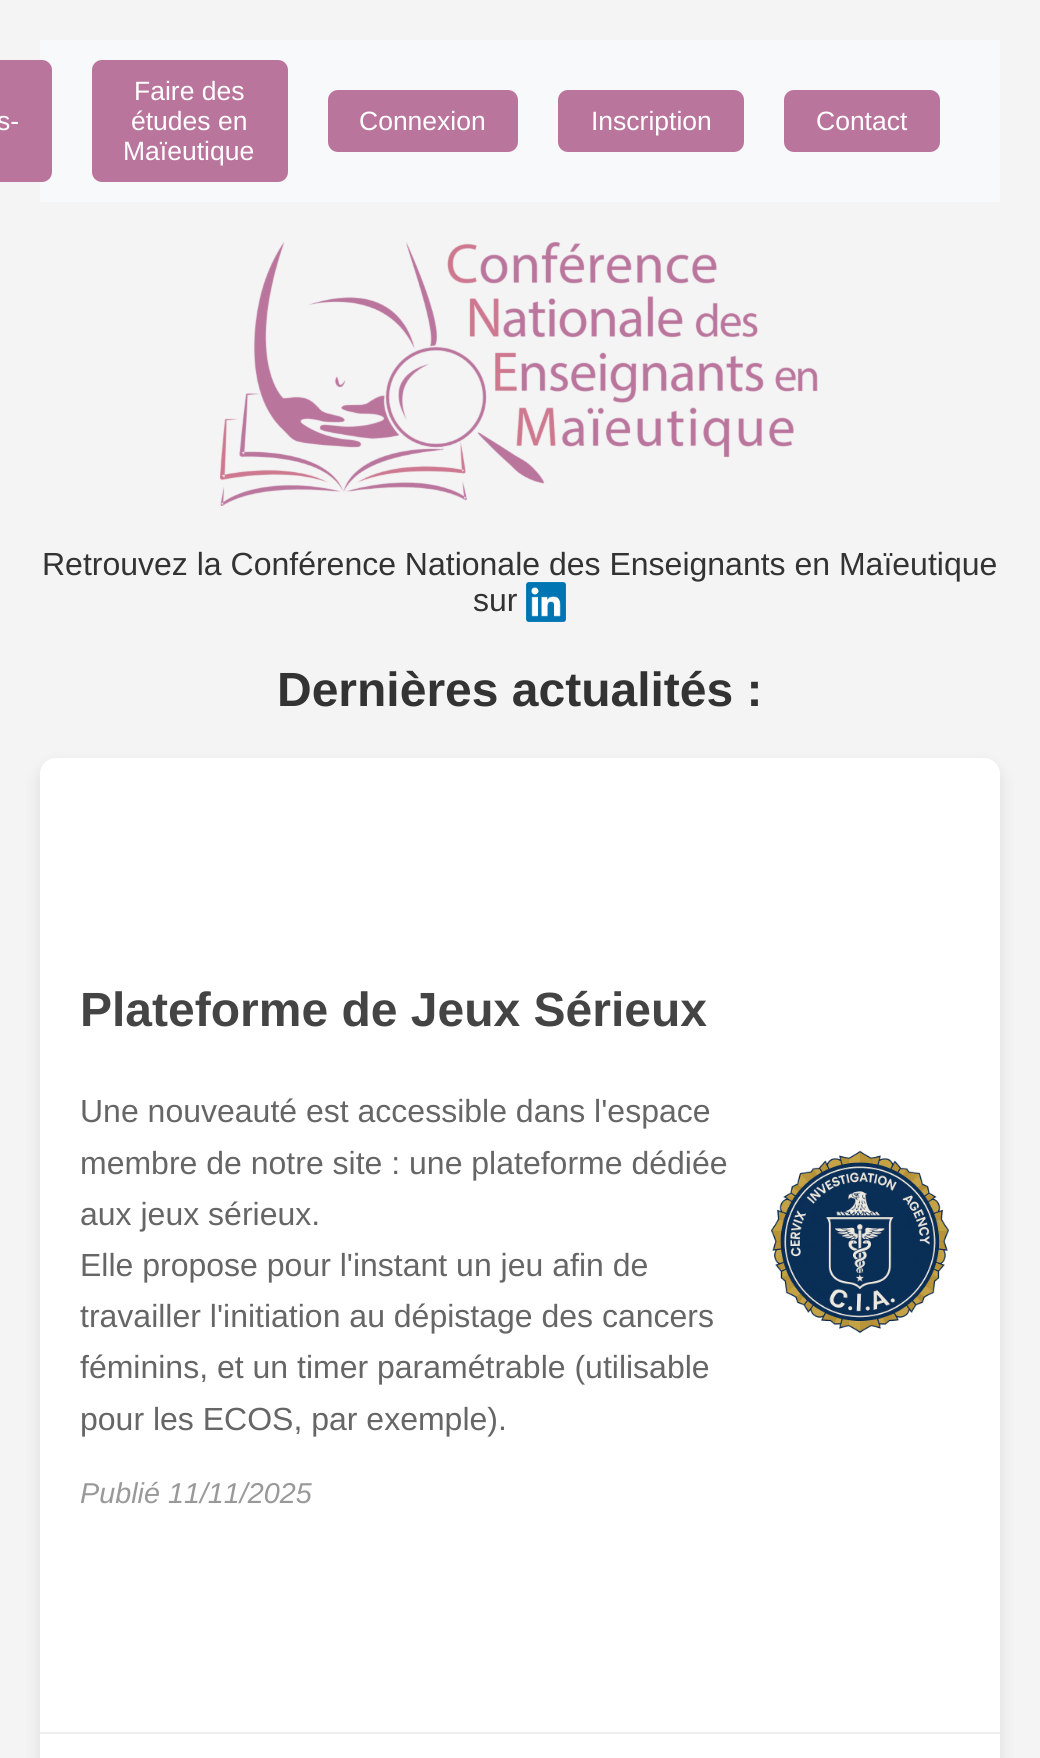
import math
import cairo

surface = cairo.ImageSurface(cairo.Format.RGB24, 1040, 1758)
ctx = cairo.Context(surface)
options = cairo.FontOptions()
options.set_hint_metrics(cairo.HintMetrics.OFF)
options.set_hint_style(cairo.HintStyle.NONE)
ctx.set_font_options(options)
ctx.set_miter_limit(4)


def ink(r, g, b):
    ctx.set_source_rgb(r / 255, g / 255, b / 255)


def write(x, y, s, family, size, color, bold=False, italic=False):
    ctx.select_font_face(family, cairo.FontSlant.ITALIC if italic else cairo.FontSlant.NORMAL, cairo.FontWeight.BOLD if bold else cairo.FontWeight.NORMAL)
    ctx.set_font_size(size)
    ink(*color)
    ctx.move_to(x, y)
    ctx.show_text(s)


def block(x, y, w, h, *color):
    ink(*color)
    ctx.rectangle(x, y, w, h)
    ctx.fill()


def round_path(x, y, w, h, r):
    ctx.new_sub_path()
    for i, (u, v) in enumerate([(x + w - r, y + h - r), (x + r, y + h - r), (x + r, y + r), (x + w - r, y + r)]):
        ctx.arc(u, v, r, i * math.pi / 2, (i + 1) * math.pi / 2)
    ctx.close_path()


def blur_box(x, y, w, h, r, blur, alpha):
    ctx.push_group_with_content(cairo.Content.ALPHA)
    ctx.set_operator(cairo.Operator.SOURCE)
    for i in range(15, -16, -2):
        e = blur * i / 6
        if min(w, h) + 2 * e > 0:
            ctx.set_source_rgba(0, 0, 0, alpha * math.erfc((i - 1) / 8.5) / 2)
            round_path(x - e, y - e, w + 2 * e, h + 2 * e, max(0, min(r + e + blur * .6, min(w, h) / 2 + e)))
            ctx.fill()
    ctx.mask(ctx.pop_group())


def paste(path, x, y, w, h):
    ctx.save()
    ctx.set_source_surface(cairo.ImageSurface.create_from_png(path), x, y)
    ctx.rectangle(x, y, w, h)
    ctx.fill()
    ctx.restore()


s1 = dict(family="Liberation Sans", size=26.5, color=(255, 255, 255))
s2 = dict(family="Liberation Sans", size=32, color=(51, 51, 51))
s3 = dict(family="Liberation Sans", size=48, color=(51, 51, 51), bold=True)
s4 = dict(family="Liberation Sans", size=48, color=(68, 68, 68), bold=True)
s5 = dict(family="Liberation Sans", size=32, color=(102, 102, 102))
s6 = dict(family="Liberation Sans", size=28.75, color=(153, 153, 153), italic=True)

ink(244, 244, 244)
ctx.paint()
block(40, 40, 960, 162, 248, 249, 250)
ink(186, 117, 157)
round_path(-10, 60, 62, 122, 10)
ctx.fill()
write(-3, 130, "s-", **s1)
ink(186, 117, 157)
round_path(92, 60, 196, 122, 10)
ctx.fill()
write(134, 100, "Faire des", **s1)
write(131, 130, "études en", **s1)
write(123, 160, "Maïeutique", **s1)
ink(186, 117, 157)
round_path(328, 90, 190, 62, 10)
ctx.fill()
write(359, 130, "Connexion", **s1)
ink(186, 117, 157)
round_path(558, 90, 186, 62, 10)
ctx.fill()
write(591, 130, "Inscription", **s1)
ink(186, 117, 157)
round_path(784, 90, 156, 62, 10)
ctx.fill()
write(816, 130, "Contact", **s1)
paste("pic1.png", 220, 242, 598, 264)
write(42, 575, "Retrouvez la Conférence Nationale des Enseignants en Maïeutique", **s2)
write(473, 611, "sur", **s2)
paste("pic2.png", 526, 582, 40, 40)
write(277, 706, "Dernières actualités :", **s3)
ink(0, 0, 0)
blur_box(40, 766, 960, 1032, 16, 8, 0.1)
ink(255, 255, 255)
round_path(40, 758, 960, 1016, 16)
ctx.fill()
write(80, 1026, "Plateforme de Jeux Sérieux", **s4)
write(80, 1122, "Une nouveauté est accessible dans l'espace", **s5)
write(80, 1174, "membre de notre site : une plateforme dédiée", **s5)
write(80, 1225, "aux jeux sérieux.", **s5)
write(80, 1276, "Elle propose pour l'instant un jeu afin de", **s5)
write(80, 1327, "travailler l'initiation au dépistage des cancers", **s5)
write(80, 1378, "féminins, et un timer paramétrable (utilisable", **s5)
write(80, 1430, "pour les ECOS, par exemple).", **s5)
write(80, 1503, "Publié 11/11/2025", **s6)
paste("pic3.png", 771, 1150, 178, 184)
block(40, 1732, 960, 2, 238, 238, 238)
surface.write_to_png("screenshot.png")
